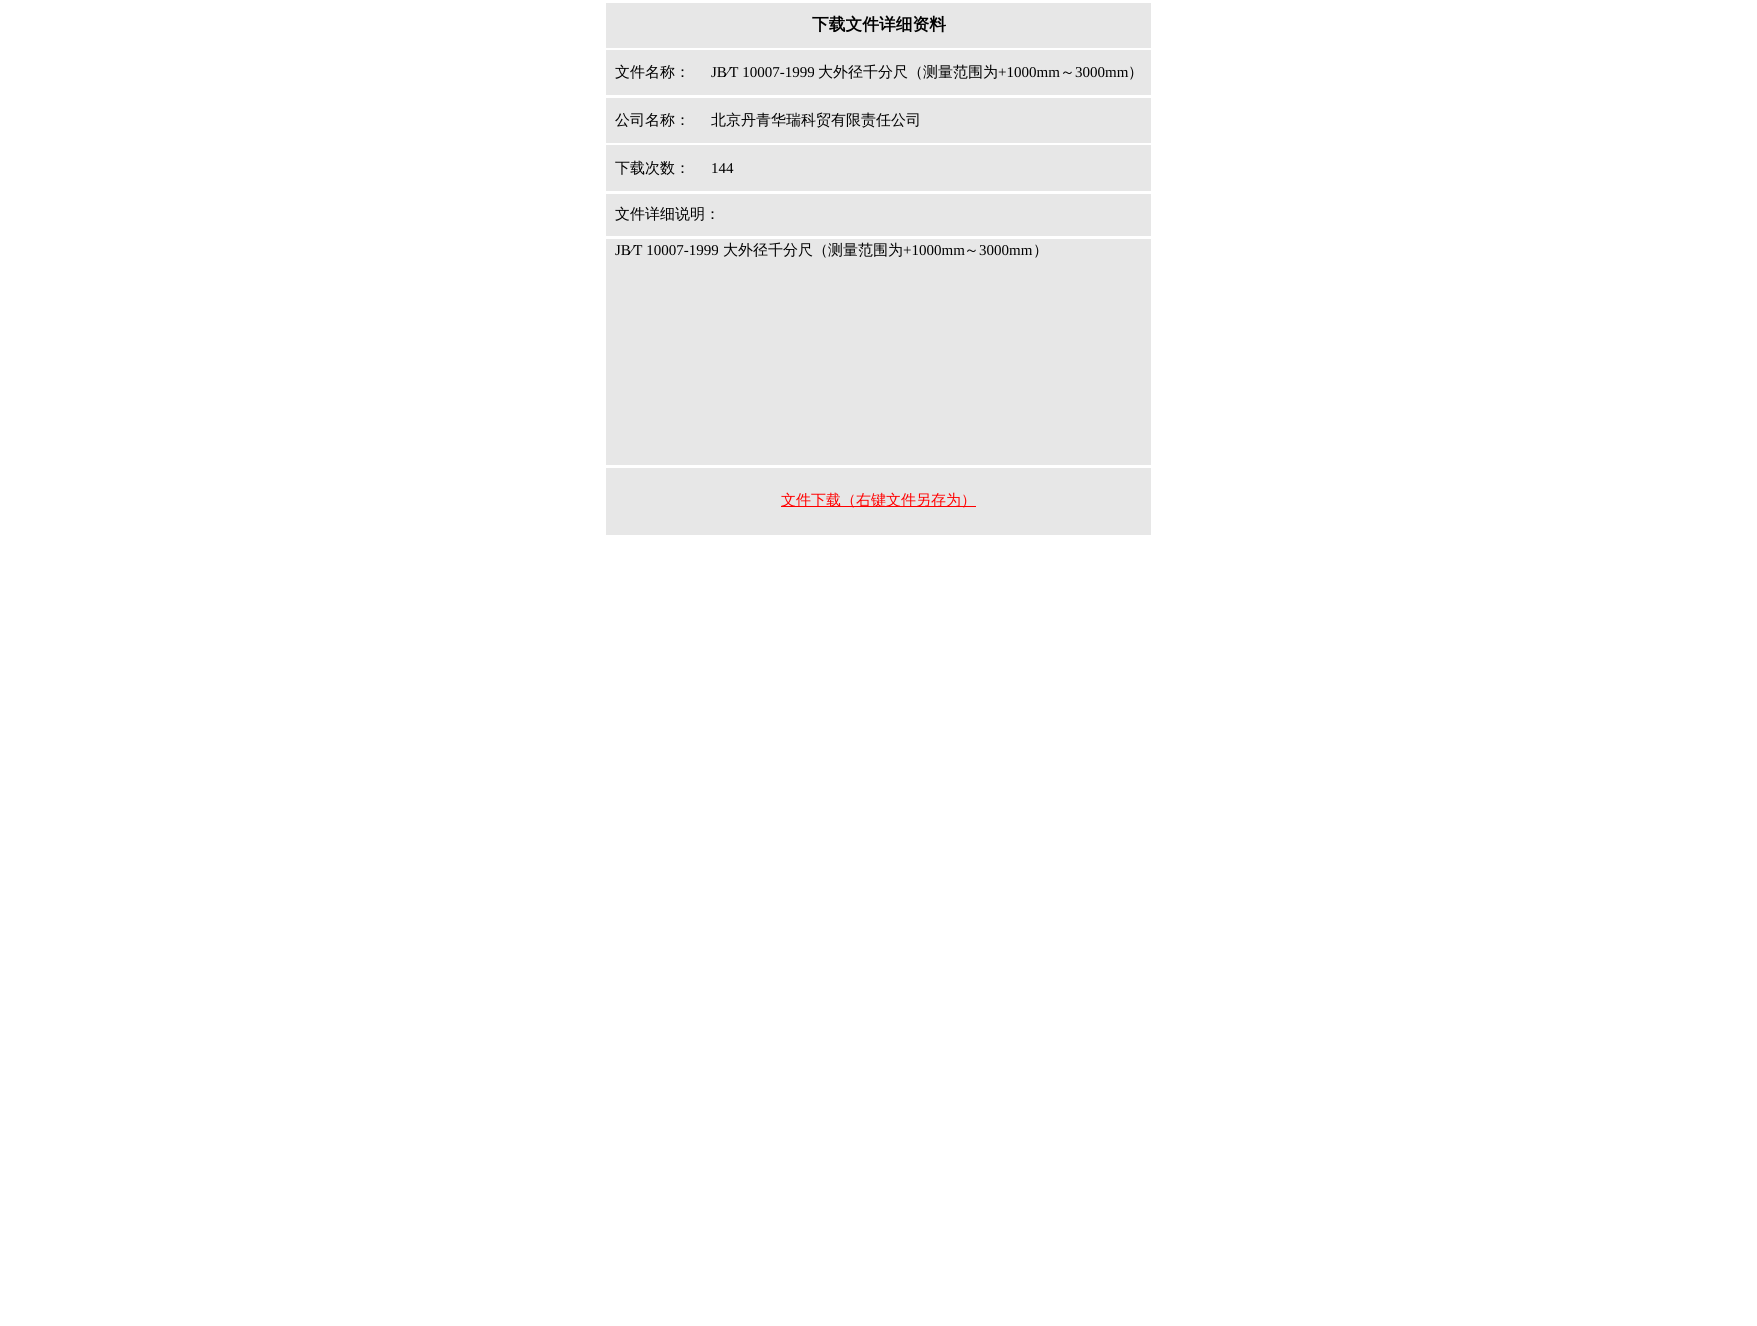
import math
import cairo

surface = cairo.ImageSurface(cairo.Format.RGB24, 1757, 1326)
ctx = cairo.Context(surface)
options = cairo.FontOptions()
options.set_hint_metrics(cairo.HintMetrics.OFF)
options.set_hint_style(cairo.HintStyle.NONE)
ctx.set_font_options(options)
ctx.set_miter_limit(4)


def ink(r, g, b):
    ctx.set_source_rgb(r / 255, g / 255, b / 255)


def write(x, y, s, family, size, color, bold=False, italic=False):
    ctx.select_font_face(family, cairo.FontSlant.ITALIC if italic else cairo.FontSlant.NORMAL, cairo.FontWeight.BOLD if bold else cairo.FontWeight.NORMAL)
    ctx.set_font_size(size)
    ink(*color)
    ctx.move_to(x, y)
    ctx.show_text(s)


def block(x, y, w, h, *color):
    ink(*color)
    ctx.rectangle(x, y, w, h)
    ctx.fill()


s1 = dict(family="WenQuanYi Zen Hei", size=16.75, color=(0, 0, 0), bold=True)
s2 = dict(family="WenQuanYi Zen Hei Medium", size=15, color=(0, 0, 0))
s3 = dict(family="Liberation Serif", size=15, color=(0, 0, 0))
s4 = dict(family="WenQuanYi Zen Hei Medium", size=15, color=(255, 0, 0))

ink(255, 255, 255)
ctx.paint()
block(606, 3, 545, 45, 231, 231, 231)
write(812, 30, "下载文件详细资料", **s1)
block(606, 50, 545, 45, 231, 231, 231)
write(615, 77, "文件名称：", **s2)
write(711, 77, "JB∕T 10007-1999", **s3)
write(818, 77, "大外径千分尺（测量范围为", **s2)
write(998, 77, "+1000mm", **s3)
write(1060, 77, "～", **s2)
write(1075, 77, "3000mm", **s3)
write(1128, 77, "）", **s2)
block(606, 98, 545, 45, 231, 231, 231)
write(615, 125, "公司名称：", **s2)
write(711, 125, "北京丹青华瑞科贸有限责任公司", **s2)
block(606, 145, 545, 46, 231, 231, 231)
write(615, 173, "下载次数：", **s2)
write(711, 173, "144", **s3)
block(606, 194, 545, 42, 231, 231, 231)
write(615, 219, "文件详细说明：", **s2)
block(606, 239, 545, 226, 231, 231, 231)
write(615, 255, "JB∕T 10007-1999", **s3)
write(723, 255, "大外径千分尺（测量范围为", **s2)
write(903, 255, "+1000mm", **s3)
write(964, 255, "～", **s2)
write(979, 255, "3000mm", **s3)
write(1033, 255, "）", **s2)
block(606, 468, 545, 67, 231, 231, 231)
block(781, 506, 195, 1, 255, 0, 0)
write(781, 505, "文件下载（右键文件另存为）", **s4)
surface.write_to_png("screenshot.png")
